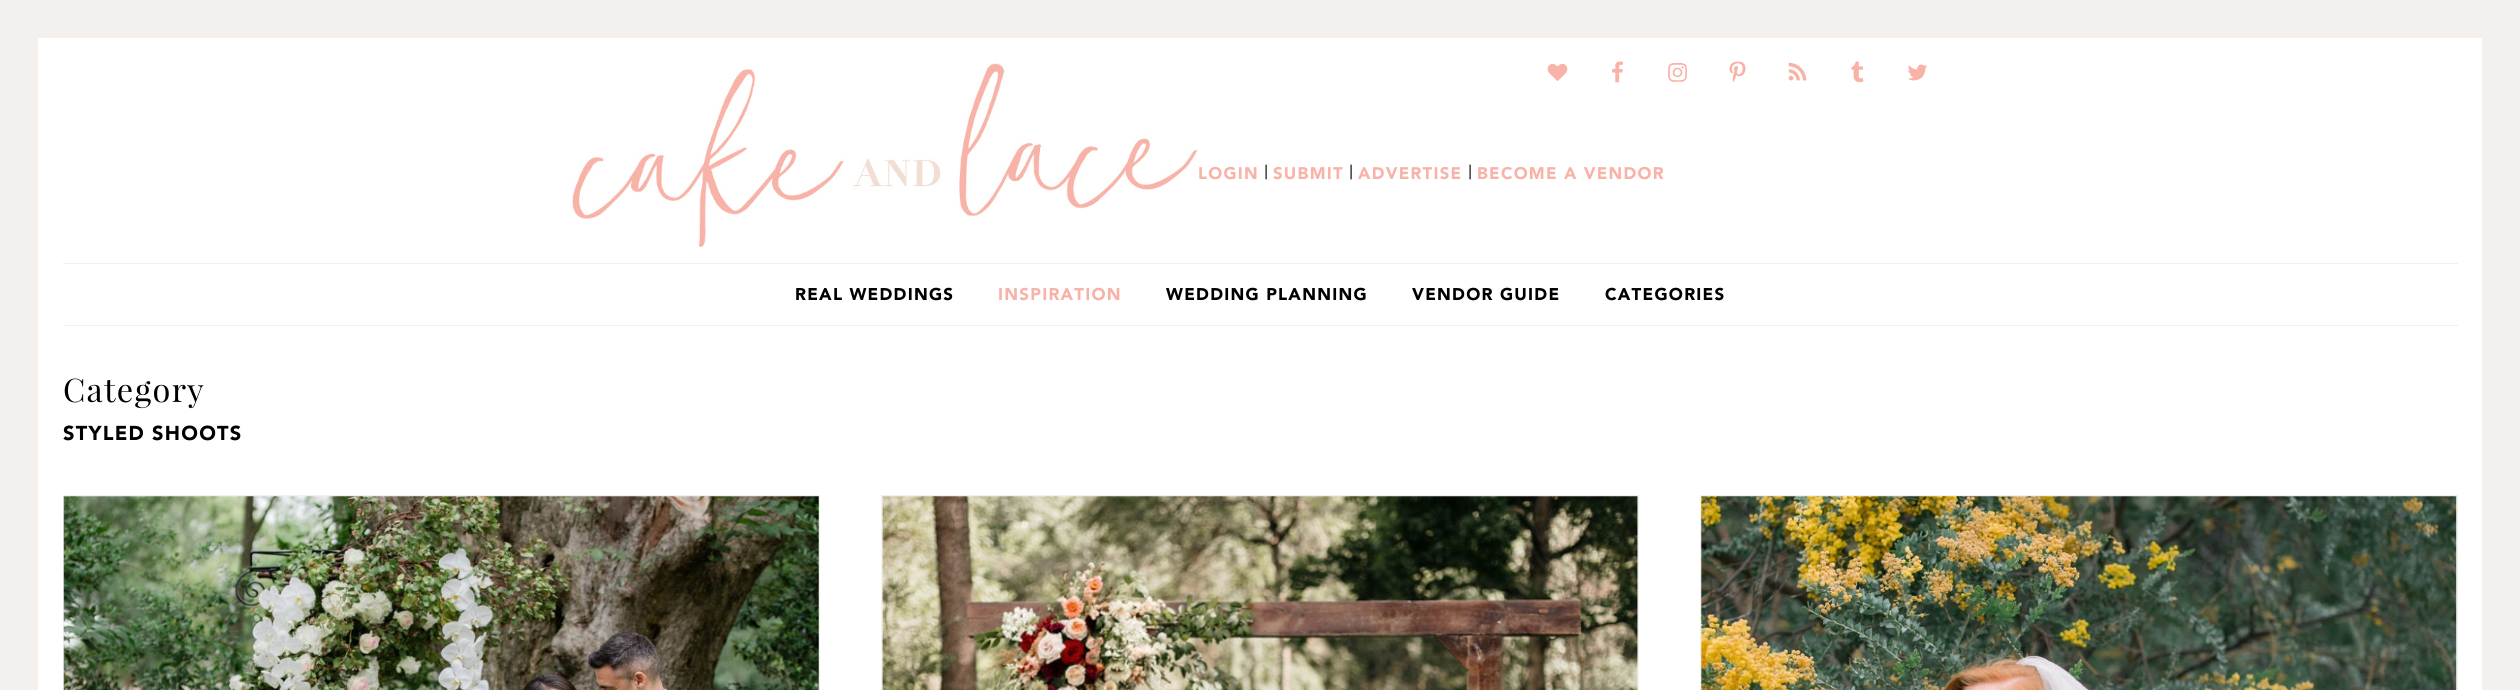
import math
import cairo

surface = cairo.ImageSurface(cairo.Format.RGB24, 2520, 690)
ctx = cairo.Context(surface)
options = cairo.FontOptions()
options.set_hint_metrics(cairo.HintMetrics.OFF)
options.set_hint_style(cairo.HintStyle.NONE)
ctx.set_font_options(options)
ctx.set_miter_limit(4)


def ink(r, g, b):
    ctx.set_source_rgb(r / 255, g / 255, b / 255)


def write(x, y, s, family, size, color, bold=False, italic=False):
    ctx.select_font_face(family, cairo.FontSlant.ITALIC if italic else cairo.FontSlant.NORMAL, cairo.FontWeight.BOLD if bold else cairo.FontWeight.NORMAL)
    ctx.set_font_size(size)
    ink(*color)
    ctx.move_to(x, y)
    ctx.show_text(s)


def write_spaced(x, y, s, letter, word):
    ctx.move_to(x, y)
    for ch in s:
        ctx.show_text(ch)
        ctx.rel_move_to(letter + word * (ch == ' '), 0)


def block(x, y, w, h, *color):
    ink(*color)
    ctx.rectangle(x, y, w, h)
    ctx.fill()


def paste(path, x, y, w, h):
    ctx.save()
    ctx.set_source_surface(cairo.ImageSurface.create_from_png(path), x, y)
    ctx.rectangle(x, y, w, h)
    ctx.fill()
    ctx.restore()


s1 = dict(family="Avenir", size=19, color=(0, 0, 0))

ink(255, 255, 255)
ctx.paint()
ctx.rectangle(19, 19, 2482, 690)
ink(243, 240, 237)
ctx.set_line_width(38)
ctx.stroke()
paste("pic1.png", 572, 63, 626, 185)
paste("pic2.png", 1547, 64, 21, 17)
paste("pic3.png", 1612, 61, 11, 22)
paste("pic4.png", 1668, 63, 19, 19)
paste("pic5.png", 1729, 61, 17, 21)
paste("pic6.png", 1788, 62, 19, 19)
paste("pic7.png", 1851, 61, 13, 22)
paste("pic8.png", 1908, 64, 20, 17)
ctx.select_font_face("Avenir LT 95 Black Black")
ctx.set_font_size(16.75)
ink(249, 178, 168)
write_spaced(1198, 179, "LOGIN", 1.25, 0)
write(1264, 179, "|", **s1)
ctx.select_font_face("Avenir LT 95 Black Black")
ctx.set_font_size(16.75)
ink(249, 178, 168)
write_spaced(1273, 179, "SUBMIT", 1.25, 0)
write(1349, 179, "|", **s1)
ctx.select_font_face("Avenir LT 95 Black Black")
ctx.set_font_size(16.75)
ink(249, 178, 168)
write_spaced(1358, 179, "ADVERTISE", 1.25, 0)
write(1468, 179, "|", **s1)
ctx.select_font_face("Avenir LT 95 Black Black")
ctx.set_font_size(16.75)
ink(249, 178, 168)
write_spaced(1477, 179, "BECOME A VENDOR", 1.25, 0)
block(63, 263, 2395, 1, 243, 240, 236)
block(63, 325, 2395, 1, 243, 240, 236)
ctx.set_font_size(16.9)
ink(0, 0, 0)
write_spaced(795, 300, "REAL WEDDINGS", 1.25, 0)
ink(249, 178, 168)
write_spaced(998, 300, "INSPIRATION", 1.25, 0)
ink(0, 0, 0)
write_spaced(1166, 300, "WEDDING PLANNING", 1.25, 0)
write_spaced(1412, 300, "VENDOR GUIDE", 1.25, 0)
write_spaced(1605, 300, "CATEGORIES", 1.25, 0)
ctx.select_font_face("Playfair Display")
ctx.set_font_size(32.5)
write_spaced(63, 402, "Category", 1.25, 0)
ctx.select_font_face("Avenir LT 95 Black Black")
ctx.set_font_size(20)
write_spaced(63, 440, "STYLED SHOOTS", 1.25, 0)
ctx.rectangle(63.5, 495.5, 756, 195)
ink(243, 240, 236)
ctx.set_line_width(1)
ctx.stroke()
paste("pic9.png", 63, 496, 756, 194)
ctx.rectangle(881.5, 495.5, 757, 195)
ctx.stroke()
paste("pic10.png", 882, 496, 756, 194)
ctx.rectangle(1700.5, 495.5, 757, 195)
ctx.stroke()
paste("pic11.png", 1701, 496, 756, 194)
surface.write_to_png("screenshot.png")
